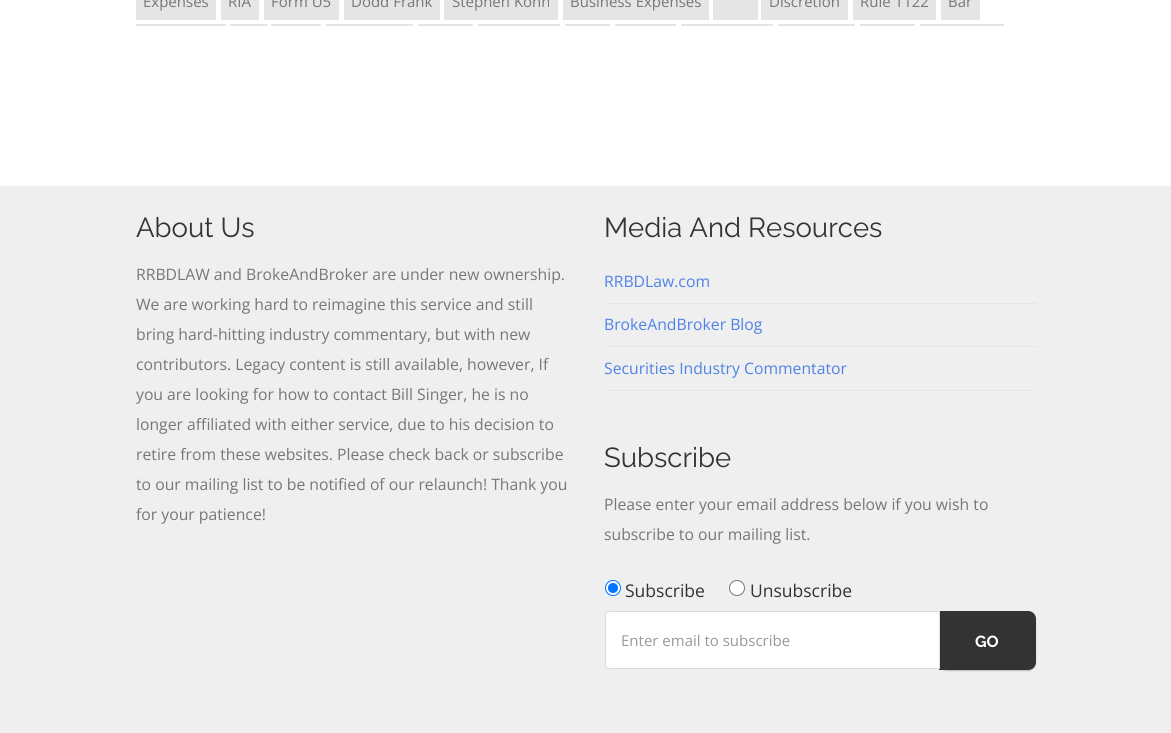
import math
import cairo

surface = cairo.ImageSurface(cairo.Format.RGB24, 1171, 733)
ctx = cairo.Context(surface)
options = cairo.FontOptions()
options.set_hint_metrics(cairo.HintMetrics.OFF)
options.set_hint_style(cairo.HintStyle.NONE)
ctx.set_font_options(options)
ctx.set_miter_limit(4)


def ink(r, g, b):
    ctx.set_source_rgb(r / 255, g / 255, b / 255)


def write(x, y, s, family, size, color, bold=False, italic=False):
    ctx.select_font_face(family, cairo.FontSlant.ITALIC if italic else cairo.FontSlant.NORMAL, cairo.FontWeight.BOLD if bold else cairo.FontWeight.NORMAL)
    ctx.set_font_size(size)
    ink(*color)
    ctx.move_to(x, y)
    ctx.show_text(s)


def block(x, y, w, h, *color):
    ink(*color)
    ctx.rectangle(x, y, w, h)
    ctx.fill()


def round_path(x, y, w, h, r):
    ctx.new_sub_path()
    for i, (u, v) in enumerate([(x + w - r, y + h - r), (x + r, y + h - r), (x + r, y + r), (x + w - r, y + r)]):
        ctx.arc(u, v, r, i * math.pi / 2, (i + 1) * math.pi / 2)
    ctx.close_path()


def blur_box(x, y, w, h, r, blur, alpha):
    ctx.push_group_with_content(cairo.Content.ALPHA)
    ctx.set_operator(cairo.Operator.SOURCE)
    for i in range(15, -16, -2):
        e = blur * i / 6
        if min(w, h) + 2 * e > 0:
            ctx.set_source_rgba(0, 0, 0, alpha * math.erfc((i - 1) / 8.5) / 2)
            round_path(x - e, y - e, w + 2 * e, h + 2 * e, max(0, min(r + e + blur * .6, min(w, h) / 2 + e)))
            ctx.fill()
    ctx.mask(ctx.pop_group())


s1 = dict(family="Open Sans", size=15, color=(119, 119, 119))
s2 = dict(family="Raleway", size=27.5, color=(51, 51, 51))
s3 = dict(family="Open Sans", size=15.75, color=(119, 119, 119))
s4 = dict(family="Open Sans", size=15.75, color=(79, 130, 233))
s5 = dict(family="Open Sans", size=17.5, color=(51, 51, 51))
s6 = dict(family="Open Sans", size=15, color=(153, 153, 153))
s7 = dict(family="Raleway", size=16, color=(255, 255, 255), bold=True)

ink(255, 255, 255)
ctx.paint()
block(136, 0, 80, 20, 229, 229, 229)
write(143, 7, "Expenses", **s1)
block(221, 0, 38, 20, 229, 229, 229)
write(228, 7, "RIA", **s1)
block(264, 0, 75, 20, 229, 229, 229)
write(271, 7, "Form U5", **s1)
block(344, 0, 96, 20, 229, 229, 229)
write(351, 7, "Dodd Frank", **s1)
block(444, 0, 114, 20, 229, 229, 229)
write(452, 7, "Stephen Kohn", **s1)
block(563, 0, 146, 20, 229, 229, 229)
write(570, 7, "Business Expenses", **s1)
block(713, 0, 45, 20, 229, 229, 229)
block(761, 0, 87, 20, 229, 229, 229)
write(769, 7, "Discretion", **s1)
block(853, 0, 83, 20, 229, 229, 229)
write(860, 7, "Rule 1122", **s1)
block(941, 0, 39, 20, 229, 229, 229)
write(948, 7, "Bar", **s1)
block(136, 24, 90, 2, 229, 229, 229)
block(230, 24, 38, 2, 229, 229, 229)
block(271, 24, 50, 2, 229, 229, 229)
block(326, 24, 87, 2, 229, 229, 229)
block(418, 24, 55, 2, 229, 229, 229)
block(478, 24, 82, 2, 229, 229, 229)
block(565, 24, 45, 2, 229, 229, 229)
block(615, 24, 61, 2, 229, 229, 229)
block(681, 24, 92, 2, 229, 229, 229)
block(778, 24, 77, 2, 229, 229, 229)
block(860, 24, 55, 2, 229, 229, 229)
block(920, 24, 84, 2, 229, 229, 229)
block(0, 186, 1171, 547, 239, 239, 239)
write(136, 237, "About Us", **s2)
write(136, 280, "RRBDLAW and BrokeAndBroker are under new ownership.", **s3)
write(136, 310, "We are working hard to reimagine this service and still", **s3)
write(136, 340, "bring hard-hitting industry commentary, but with new", **s3)
write(136, 370, "contributors. Legacy content is still available, however, If", **s3)
write(136, 400, "you are looking for how to contact Bill Singer, he is no", **s3)
write(136, 430, "longer affiliated with either service, due to his decision to", **s3)
write(136, 460, "retire from these websites. Please check back or subscribe", **s3)
write(136, 490, "to our mailing list to be notified of our relaunch! Thank you", **s3)
write(136, 520, "for your patience!", **s3)
write(604, 237, "Media And Resources", **s2)
block(605, 303, 431, 1, 229, 229, 229)
write(604, 287, "RRBDLaw.com", **s4)
block(605, 346, 431, 1, 229, 229, 229)
write(604, 330, "BrokeAndBroker Blog", **s4)
block(605, 390, 431, 1, 229, 229, 229)
write(604, 374, "Securities Industry Commentator", **s4)
write(604, 467, "Subscribe", **s2)
write(604, 510, "Please enter your email address below if you wish to", **s3)
write(604, 540, "subscribe to our mailing list.", **s3)
ink(255, 255, 255)
ctx.new_path()
ctx.arc(613, 588, 7.5, 0, 2 * math.pi)
ctx.fill_preserve()
ink(0, 117, 255)
ctx.set_line_width(1)
ctx.stroke()
ctx.arc(613, 588, 5, 0, 2 * math.pi)
ctx.fill()
write(625, 597, "Subscribe", **s5)
ink(255, 255, 255)
ctx.new_path()
ctx.arc(737, 588, 7.5, 0, 2 * math.pi)
ctx.fill_preserve()
ink(118, 118, 118)
ctx.stroke()
write(750, 597, "Unsubscribe", **s5)
ink(0, 0, 0)
blur_box(939, 613, 97, 58, 8, 0.5, 0.2)
ink(51, 51, 51)
ctx.new_path()
ctx.move_to(939, 611)
ctx.line_to(1028, 611)
ctx.curve_to(1032.5, 611, 1036, 614.5, 1036, 619)
ctx.line_to(1036, 662)
ctx.curve_to(1036, 666.5, 1032.5, 670, 1028, 670)
ctx.line_to(939, 670)
ctx.close_path()
ctx.fill()
ink(255, 255, 255)
ctx.new_path()
ctx.move_to(609, 611.5)
ctx.line_to(939.5, 611.5)
ctx.line_to(939.5, 668.5)
ctx.line_to(609, 668.5)
ctx.curve_to(607, 668.5, 605.5, 667, 605.5, 665)
ctx.line_to(605.5, 615)
ctx.curve_to(605.5, 613, 607, 611.5, 609, 611.5)
ctx.close_path()
ctx.fill_preserve()
ink(221, 221, 221)
ctx.stroke()
write(621, 646, "Enter email to subscribe", **s6)
write(975, 647, "GO", **s7)
surface.write_to_png("screenshot.png")
